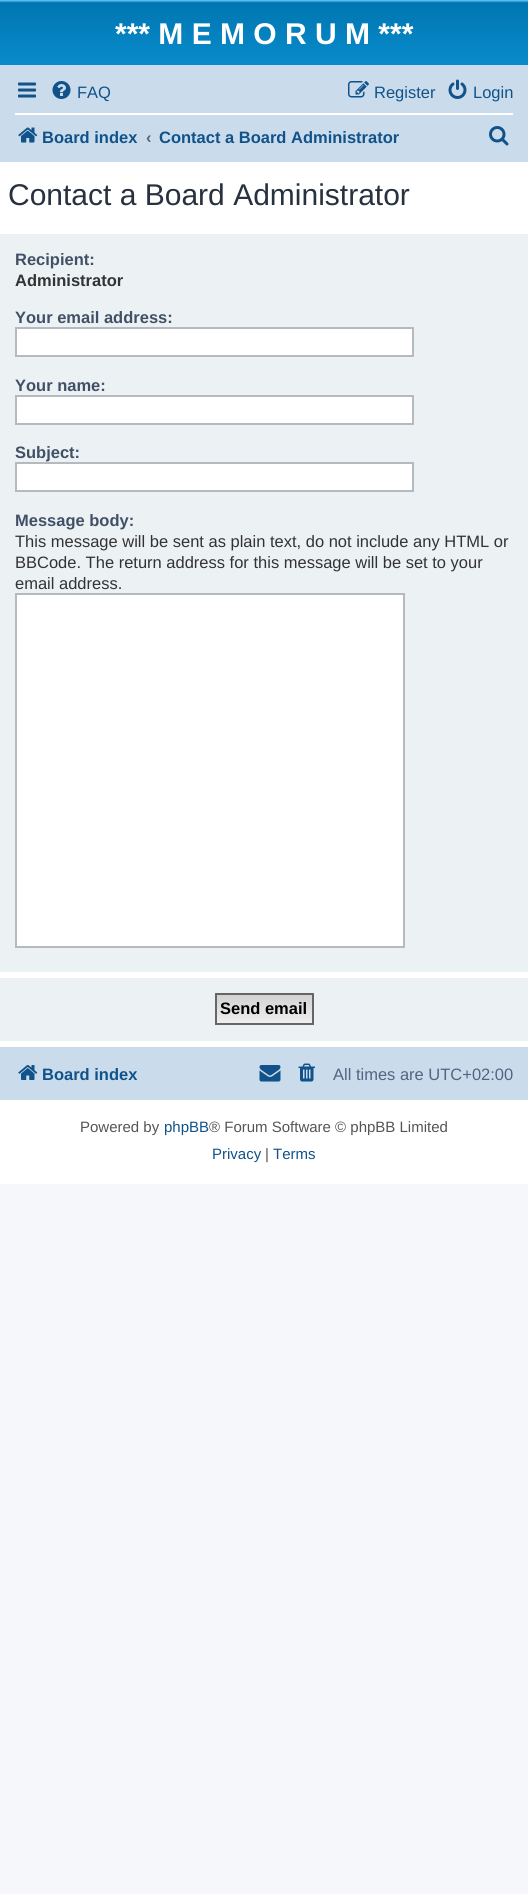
import math
import cairo

surface = cairo.ImageSurface(cairo.Format.RGB24, 528, 1894)
ctx = cairo.Context(surface)
options = cairo.FontOptions()
options.set_hint_metrics(cairo.HintMetrics.OFF)
options.set_hint_style(cairo.HintStyle.NONE)
ctx.set_font_options(options)
ctx.set_miter_limit(4)


def ink(r, g, b):
    ctx.set_source_rgb(r / 255, g / 255, b / 255)


def write(x, y, s, family, size, color, bold=False, italic=False):
    ctx.select_font_face(family, cairo.FontSlant.ITALIC if italic else cairo.FontSlant.NORMAL, cairo.FontWeight.BOLD if bold else cairo.FontWeight.NORMAL)
    ctx.set_font_size(size)
    ink(*color)
    ctx.move_to(x, y)
    ctx.show_text(s)


def block(x, y, w, h, *color):
    ink(*color)
    ctx.rectangle(x, y, w, h)
    ctx.fill()


def paste(path, x, y, w, h):
    ctx.save()
    ctx.set_source_surface(cairo.ImageSurface.create_from_png(path), x, y)
    ctx.rectangle(x, y, w, h)
    ctx.fill()
    ctx.restore()


s1 = dict(family="Liberation Sans", size=30, color=(255, 255, 255), bold=True)
s2 = dict(family="Liberation Sans", size=16.5, color=(16, 82, 137))
s3 = dict(family="Liberation Sans", size=16.5, color=(16, 82, 137), bold=True)
s4 = dict(family="Liberation Sans", size=16.5, color=(83, 100, 130), bold=True)
s5 = dict(family="Liberation Sans", size=30, color=(40, 49, 63))
s6 = dict(family="Liberation Sans", size=16.5, color=(66, 80, 103), bold=True)
s7 = dict(family="Liberation Sans", size=16.5, color=(51, 51, 51), bold=True)
s8 = dict(family="Liberation Sans", size=16.5, color=(51, 51, 51))
s9 = dict(family="Liberation Sans", size=16.5, color=(0, 0, 0), bold=True)
s10 = dict(family="Liberation Sans", size=16.5, color=(83, 100, 130))
s11 = dict(family="Liberation Sans", size=15, color=(85, 85, 85))
s12 = dict(family="Liberation Sans", size=15, color=(16, 82, 137))

ink(245, 247, 250)
ctx.paint()
block(0, 162, 528, 1022, 255, 255, 255)
gradient = cairo.LinearGradient(264, 0, 264, 138)
gradient.add_color_stop_rgba(0, 0.416, 0.808, 1, 1)
gradient.add_color_stop_rgba(0.02, 0, 0.463, 0.694, 1)
gradient.add_color_stop_rgba(1, 0.071, 0.639, 0.922, 1)
ctx.set_source(gradient)
ctx.rectangle(0, 0, 528, 65)
ctx.fill()
write(115, 44, "*** M E M O R U M ***", **s1)
block(0, 65, 528, 97, 202, 220, 235)
paste("pic1.png", 18, 82, 18, 16)
paste("pic2.png", 52, 81, 19, 18)
write(77, 98, "FAQ", **s2)
paste("pic3.png", 348, 81, 21, 17)
write(374, 98, "Register", **s2)
paste("pic4.png", 448, 79, 19, 20)
write(473, 98, "Login", **s2)
block(15, 113, 498, 2, 255, 255, 255)
paste("pic5.png", 18, 127, 20, 16)
write(42, 143, "Board index", **s3)
write(146, 143, "‹", **s4)
write(159, 143, "Contact a Board Administrator", **s3)
paste("pic6.png", 489, 126, 20, 20)
write(8, 205, "Contact a Board Administrator", **s5)
block(0, 234, 528, 738, 236, 241, 243)
write(15, 265, "Recipient:", **s6)
write(15, 286, "Administrator", **s7)
write(15, 323, "Your email address:", **s6)
ink(255, 255, 255)
ctx.rectangle(16, 328, 397, 28)
ctx.fill_preserve()
ink(180, 186, 192)
ctx.stroke()
write(15, 391, "Your name:", **s6)
ink(255, 255, 255)
ctx.rectangle(16, 396, 397, 28)
ctx.fill_preserve()
ink(180, 186, 192)
ctx.stroke()
write(15, 458, "Subject:", **s6)
ink(255, 255, 255)
ctx.rectangle(16, 463, 397, 28)
ctx.fill_preserve()
ink(180, 186, 192)
ctx.stroke()
write(15, 526, "Message body:", **s6)
write(15, 547, "This message will be sent as plain text, do not include any HTML or", **s8)
write(15, 568, "BBCode. The return address for this message will be set to your", **s8)
write(15, 589, "email address.", **s8)
ink(255, 255, 255)
ctx.rectangle(16, 594, 388, 353)
ctx.fill_preserve()
ink(180, 186, 192)
ctx.stroke()
block(0, 978, 528, 63, 236, 241, 243)
gradient = cairo.LinearGradient(264, 995, 264, 1023)
gradient.add_color_stop_rgba(0, 0.824, 0.824, 0.824, 1)
gradient.add_color_stop_rgba(1, 0.937, 0.937, 0.937, 1)
ctx.set_source(gradient)
ctx.rectangle(217, 995, 95, 28)
ctx.fill()
ctx.rectangle(216, 994, 97, 30)
ink(102, 102, 102)
ctx.stroke()
write(220, 1014, "Send email", **s9)
block(0, 1047, 528, 53, 202, 220, 235)
paste("pic7.png", 18, 1065, 20, 15)
write(42, 1080, "Board index", **s3)
paste("pic8.png", 259, 1065, 22, 17)
paste("pic9.png", 298, 1063, 17, 19)
write(333, 1080, "All times are UTC+02:00", **s10)
write(80, 1132, "Powered by", **s11)
write(164, 1132, "phpBB", **s12)
write(209, 1132, "® Forum Software © phpBB Limited", **s11)
write(212, 1159, "Privacy", **s12)
write(265, 1159, "|", **s11)
write(273, 1159, "Terms", **s12)
surface.write_to_png("screenshot.png")
